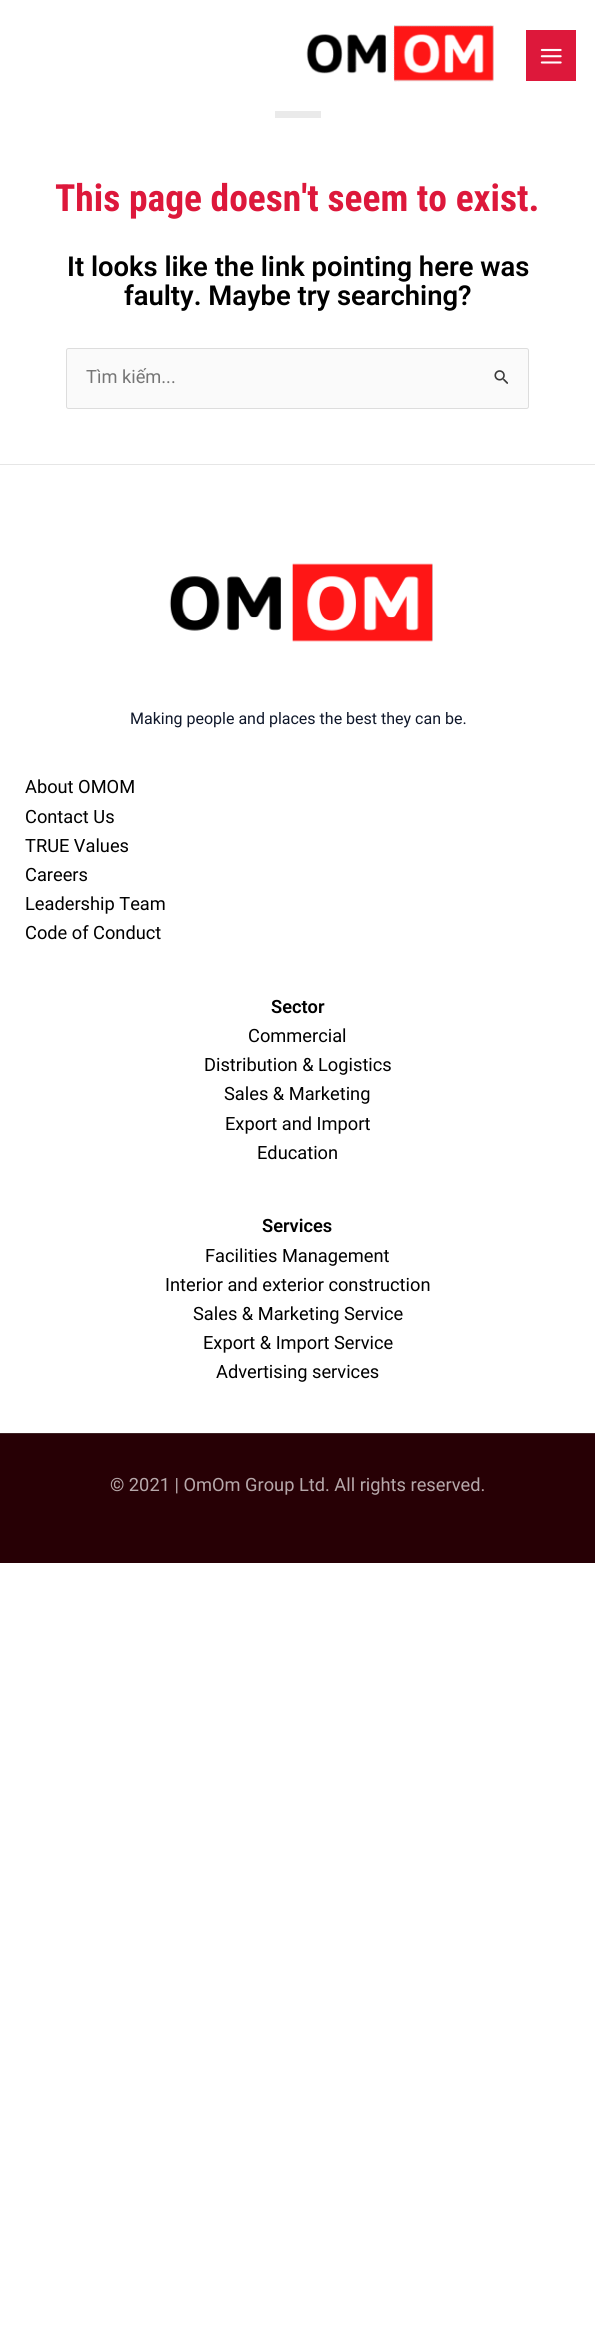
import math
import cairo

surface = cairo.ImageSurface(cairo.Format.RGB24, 595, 2343)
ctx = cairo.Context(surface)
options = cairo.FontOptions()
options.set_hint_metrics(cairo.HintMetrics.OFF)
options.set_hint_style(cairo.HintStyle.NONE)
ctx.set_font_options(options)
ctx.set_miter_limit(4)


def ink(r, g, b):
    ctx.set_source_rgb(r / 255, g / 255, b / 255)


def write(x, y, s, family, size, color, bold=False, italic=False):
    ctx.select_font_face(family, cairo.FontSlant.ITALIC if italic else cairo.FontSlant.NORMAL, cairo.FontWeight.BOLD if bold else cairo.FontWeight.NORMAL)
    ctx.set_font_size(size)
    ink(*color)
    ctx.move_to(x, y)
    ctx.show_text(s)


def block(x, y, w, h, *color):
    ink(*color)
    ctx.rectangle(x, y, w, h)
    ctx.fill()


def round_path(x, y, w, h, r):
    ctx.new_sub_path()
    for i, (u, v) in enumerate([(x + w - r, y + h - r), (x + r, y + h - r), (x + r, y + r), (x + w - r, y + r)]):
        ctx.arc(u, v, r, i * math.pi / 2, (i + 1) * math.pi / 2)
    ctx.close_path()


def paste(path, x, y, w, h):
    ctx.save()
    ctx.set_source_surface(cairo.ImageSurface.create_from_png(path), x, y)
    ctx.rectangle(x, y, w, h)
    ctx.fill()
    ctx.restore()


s1 = dict(family="Roboto Condensed", size=37.5, color=(221, 24, 59), bold=True)
s2 = dict(family="Roboto SemiBold", size=27.4, color=(0, 0, 0))
s3 = dict(family="Roboto", size=18.25, color=(117, 117, 117))
s4 = dict(family="Roboto", size=16, color=(15, 23, 42))
s5 = dict(family="Roboto", size=18.25, color=(0, 0, 0))
s6 = dict(family="Roboto SemiBold", size=18.25, color=(0, 0, 0))
s7 = dict(family="Roboto", size=18.25, color=(182, 168, 170))

ink(255, 255, 255)
ctx.paint()
block(275, 111, 46, 7, 234, 234, 234)
paste("pic1.png", 306, 25, 188, 57)
block(526, 30, 50, 51, 221, 24, 59)
paste("pic2.png", 540, 48, 22, 16)
write(55, 211, "This page doesn't seem to exist.", **s1)
write(67, 276, "It looks like the link pointing here was", **s2)
write(124, 305, "faulty. Maybe try searching?", **s2)
ink(250, 250, 250)
round_path(66.5, 348.5, 462, 60, 2)
ctx.fill_preserve()
ink(221, 221, 221)
ctx.set_line_width(1)
ctx.stroke()
write(86, 383, "Tìm kiếm...", **s3)
paste("pic3.png", 494, 370, 14, 14)
block(0, 464, 595, 1, 230, 230, 230)
paste("pic4.png", 169, 563, 264, 79)
write(130, 724, "Making people and places the best they can be.", **s4)
write(25, 793, "About OMOM", **s5)
write(25, 823, "Contact Us", **s5)
write(25, 852, "TRUE Values", **s5)
write(25, 881, "Careers", **s5)
write(25, 910, "Leadership Team", **s5)
write(25, 939, "Code of Conduct", **s5)
write(271, 1013, "Sector", **s6)
write(248, 1042, "Commercial", **s5)
write(204, 1071, "Distribution & Logistics", **s5)
write(224, 1100, "Sales & Marketing", **s5)
write(225, 1130, "Export and Import", **s5)
write(257, 1159, "Education", **s5)
write(262, 1232, "Services", **s6)
write(205, 1262, "Facilities Management", **s5)
write(165, 1291, "Interior and exterior construction", **s5)
write(193, 1320, "Sales & Marketing Service", **s5)
write(203, 1349, "Export & Import Service", **s5)
write(216, 1378, "Advertising services", **s5)
block(0, 1434, 595, 129, 39, 0, 5)
block(0, 1433, 595, 1, 62, 34, 37)
write(110, 1491, "© 2021 | OmOm Group Ltd. All rights reserved.", **s7)
surface.write_to_png("screenshot.png")
